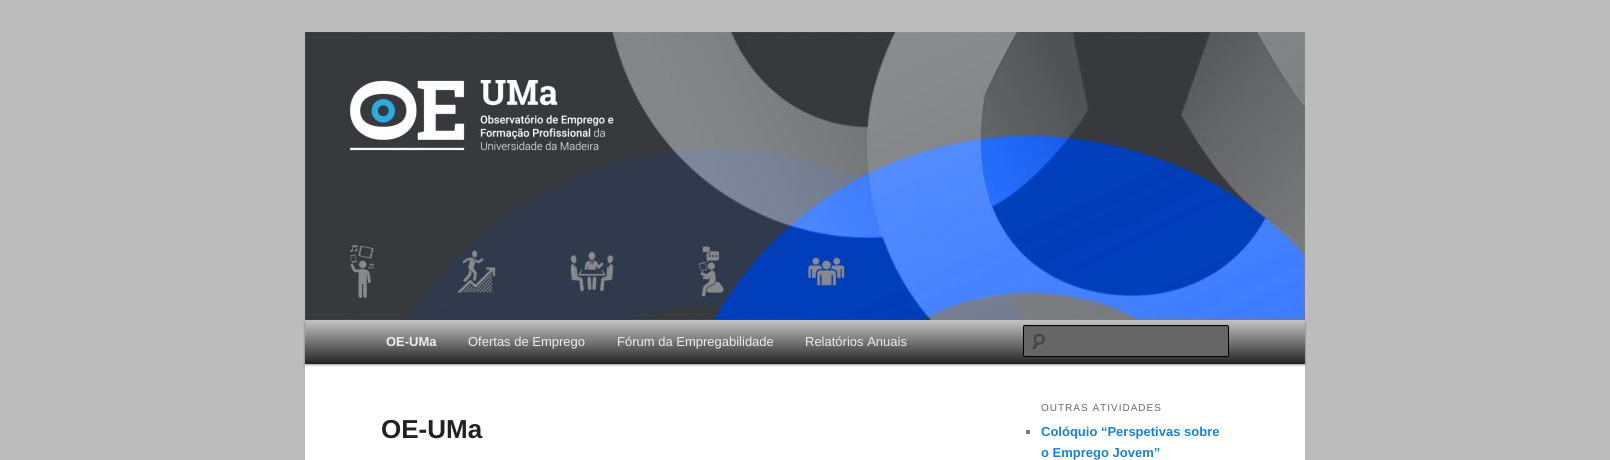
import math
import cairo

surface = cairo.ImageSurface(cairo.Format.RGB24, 1610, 460)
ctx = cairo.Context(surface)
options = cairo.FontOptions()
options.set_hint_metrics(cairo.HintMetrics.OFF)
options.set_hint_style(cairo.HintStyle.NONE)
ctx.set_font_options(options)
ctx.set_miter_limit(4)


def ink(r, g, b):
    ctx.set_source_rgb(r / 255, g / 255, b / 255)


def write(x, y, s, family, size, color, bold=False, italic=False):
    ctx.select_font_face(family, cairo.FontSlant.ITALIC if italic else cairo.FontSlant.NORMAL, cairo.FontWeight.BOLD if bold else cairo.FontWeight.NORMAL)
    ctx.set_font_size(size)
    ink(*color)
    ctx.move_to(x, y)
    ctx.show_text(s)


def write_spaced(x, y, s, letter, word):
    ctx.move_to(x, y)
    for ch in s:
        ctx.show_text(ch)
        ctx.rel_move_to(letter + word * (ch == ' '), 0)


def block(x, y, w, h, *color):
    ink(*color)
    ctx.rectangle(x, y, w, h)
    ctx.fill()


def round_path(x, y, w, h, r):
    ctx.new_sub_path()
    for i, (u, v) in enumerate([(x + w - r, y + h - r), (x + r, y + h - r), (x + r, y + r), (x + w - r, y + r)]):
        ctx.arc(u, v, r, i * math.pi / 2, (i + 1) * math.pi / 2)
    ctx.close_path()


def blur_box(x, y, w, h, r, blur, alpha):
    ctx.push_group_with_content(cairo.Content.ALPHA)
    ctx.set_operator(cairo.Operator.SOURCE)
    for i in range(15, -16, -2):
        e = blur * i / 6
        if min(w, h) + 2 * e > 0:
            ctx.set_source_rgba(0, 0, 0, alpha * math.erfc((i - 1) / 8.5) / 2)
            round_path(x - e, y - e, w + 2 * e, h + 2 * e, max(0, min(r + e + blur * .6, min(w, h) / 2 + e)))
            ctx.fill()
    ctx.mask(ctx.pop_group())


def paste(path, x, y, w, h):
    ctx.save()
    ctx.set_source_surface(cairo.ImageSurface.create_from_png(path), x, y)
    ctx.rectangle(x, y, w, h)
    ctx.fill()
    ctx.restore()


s1 = dict(family="Liberation Sans", size=13, color=(238, 238, 238), bold=True)
s2 = dict(family="Liberation Sans", size=13, color=(238, 238, 238))
s3 = dict(family="Liberation Sans", size=26, color=(34, 34, 34), bold=True)
s4 = dict(family="Liberation Sans", size=13, color=(25, 130, 209), bold=True)

ink(188, 188, 188)
ctx.paint()
block(305, 364, 1000, 96, 255, 255, 255)
ink(0, 0, 0)
blur_box(305, 321, 1000, 44, 0, 1, 0.4)
paste("pic1.png", 305, 32, 1000, 288)
gradient = cairo.LinearGradient(805, 320, 805, 363)
gradient.add_color_stop_rgba(0, 0.769, 0.769, 0.769, 1)
gradient.add_color_stop_rgba(1, 0.153, 0.153, 0.153, 1)
ctx.set_source(gradient)
ctx.rectangle(305, 320, 1000, 43)
ctx.fill()
block(305, 363, 1000, 1, 34, 34, 34)
write(386, 346, "OE-UMa", **s1)
write(468, 346, "Ofertas de Emprego", **s2)
write(617, 346, "Fórum da Empregabilidade", **s2)
write(805, 346, "Relatórios Anuais", **s2)
ink(102, 102, 102)
round_path(1023, 325, 206, 32, 2)
ctx.fill()
paste("pic2.png", 1032, 333, 13, 17)
ink(92, 92, 92)
ctx.new_path()
ctx.move_to(1025, 327)
ctx.line_to(1228, 327)
ctx.line_to(1228, 328)
ctx.line_to(1228, 326)
ctx.line_to(1227, 326)
ctx.line_to(1025, 326)
ctx.curve_to(1024, 326, 1024, 327, 1024, 328)
ctx.curve_to(1024, 327, 1024, 327, 1025, 327)
ctx.close_path()
ctx.fill()
round_path(1023.5, 325.5, 205, 31, 1.5)
ink(0, 0, 0)
ctx.set_line_width(1)
ctx.stroke()
write(381, 438, "OE-UMa", **s3)
ctx.select_font_face("Liberation Sans")
ctx.set_font_size(10)
ink(102, 102, 102)
write_spaced(1041, 411, "OUTRAS ATIVIDADES", 1, 0)
block(1026, 430, 4, 4, 119, 119, 119)
write(1041, 436, "Colóquio “Perspetivas sobre", **s4)
write(1041, 457, "o Emprego Jovem”", **s4)
surface.write_to_png("screenshot.png")
